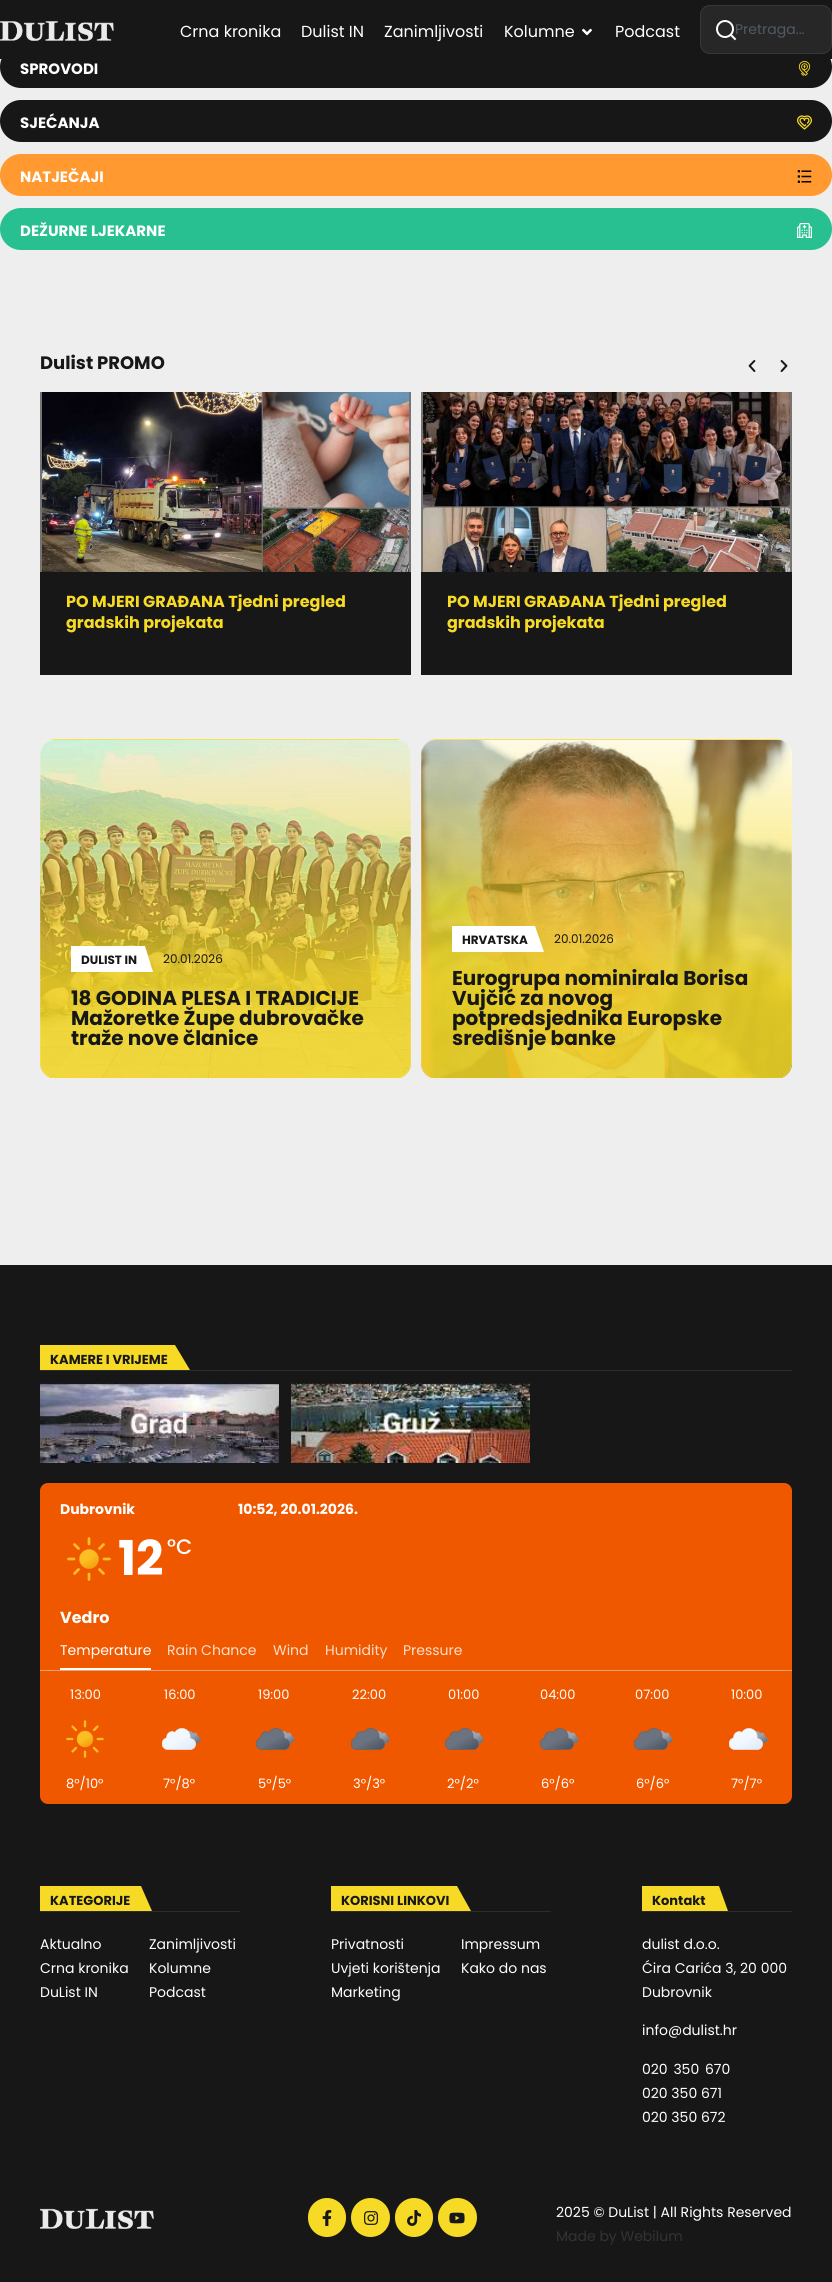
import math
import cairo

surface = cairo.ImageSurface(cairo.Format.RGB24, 832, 2282)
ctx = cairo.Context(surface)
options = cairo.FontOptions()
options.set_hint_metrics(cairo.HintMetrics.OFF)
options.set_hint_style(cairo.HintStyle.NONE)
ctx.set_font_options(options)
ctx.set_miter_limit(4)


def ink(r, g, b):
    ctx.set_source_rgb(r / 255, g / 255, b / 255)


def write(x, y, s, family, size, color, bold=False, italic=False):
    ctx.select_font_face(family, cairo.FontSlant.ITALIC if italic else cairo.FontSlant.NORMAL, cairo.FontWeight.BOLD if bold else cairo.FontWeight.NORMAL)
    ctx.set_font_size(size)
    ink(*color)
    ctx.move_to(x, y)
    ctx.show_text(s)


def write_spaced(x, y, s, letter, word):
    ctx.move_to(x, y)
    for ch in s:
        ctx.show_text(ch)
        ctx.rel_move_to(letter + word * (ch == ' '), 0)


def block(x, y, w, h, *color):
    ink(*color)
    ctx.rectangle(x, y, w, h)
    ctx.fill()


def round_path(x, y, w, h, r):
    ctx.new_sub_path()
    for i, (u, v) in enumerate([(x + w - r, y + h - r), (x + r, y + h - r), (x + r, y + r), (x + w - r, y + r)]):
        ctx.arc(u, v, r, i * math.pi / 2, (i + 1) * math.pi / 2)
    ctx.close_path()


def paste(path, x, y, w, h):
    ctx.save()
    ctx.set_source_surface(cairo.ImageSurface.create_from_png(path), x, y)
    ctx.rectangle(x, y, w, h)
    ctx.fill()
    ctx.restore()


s1 = dict(family="Poppins", size=16, color=(255, 255, 255))
s2 = dict(family="Poppins", size=14, color=(81, 89, 98))
s3 = dict(family="Poppins", size=15, color=(255, 255, 255), bold=True)
s4 = dict(family="Poppins", size=18, color=(23, 23, 23), bold=True)
s5 = dict(family="Poppins", size=16, color=(246, 218, 38), bold=True)
s6 = dict(family="Poppins", size=12, color=(23, 23, 23), bold=True)
s7 = dict(family="Poppins", size=12, color=(23, 23, 23))
s8 = dict(family="Poppins", size=20, color=(23, 23, 23), bold=True)
s9 = dict(family="Poppins", size=13, color=(23, 23, 23), bold=True)
s10 = dict(family="Poppins", size=14, color=(255, 255, 255), bold=True)
s11 = dict(family="Poppins", size=48, color=(255, 255, 255), bold=True)
s12 = dict(family="Poppins Medium", size=21, color=(255, 255, 255))
s13 = dict(family="Poppins", size=16, color=(255, 255, 255), bold=True)
s14 = dict(family="Poppins", size=14, color=(255, 255, 255))
s15 = dict(family="Poppins", size=14, color=(252, 222, 204))
s16 = dict(family="Poppins", size=13, color=(255, 255, 255))
s17 = dict(family="Poppins", size=14, color=(51, 51, 51))

ink(238, 238, 238)
ctx.paint()
ink(23, 23, 23)
round_path(0, 46, 832, 42, 21)
ctx.fill()
block(0, 0, 832, 59, 23, 23, 23)
paste("pic1.png", 0, 21, 114, 20)
write(180, 37, "Crna kronika", **s1)
write(301, 37, "Dulist IN", **s1)
write(384, 37, "Zanimljivosti", **s1)
write(504, 37, "Kolumne", **s1)
paste("pic2.png", 582, 28, 10, 8)
write(615, 37, "Podcast", **s1)
ink(39, 39, 39)
round_path(700, 5, 132, 49, 10)
ctx.fill()
round_path(700.5, 5.5, 131, 48, 9.5)
ctx.set_source_rgba(1, 1, 1, 0.08)
ctx.set_line_width(1)
ctx.stroke()
write(735, 34, "Pretraga...", **s2)
paste("pic3.png", 716, 20, 21, 21)
write(20, 74, "SPROVODI", **s3)
paste("pic4.png", 798, 61, 13, 15)
ink(23, 23, 23)
round_path(0, 100, 832, 42, 21)
ctx.fill()
write(20, 128, "SJEĆANJA", **s3)
paste("pic5.png", 797, 115, 15, 15)
ink(255, 153, 48)
round_path(0, 154, 832, 42, 21)
ctx.fill()
write(20, 182, "NATJEČAJI", **s3)
paste("pic6.png", 797, 170, 15, 13)
ink(40, 192, 144)
round_path(0, 208, 832, 42, 21)
ctx.fill()
write(20, 236, "DEŽURNE LJEKARNE", **s3)
paste("pic7.png", 797, 223, 15, 15)
write(40, 369, "Dulist PROMO", **s4)
paste("pic8.png", 748, 360, 8, 12)
paste("pic9.png", 780, 360, 8, 12)
block(40, 572, 371, 103, 23, 23, 23)
paste("pic10.png", 40, 392, 371, 180)
write(66, 607, "PO MJERI GRAĐANA Tjedni pregled", **s5)
write(66, 628, "gradskih projekata", **s5)
block(421, 572, 371, 103, 23, 23, 23)
paste("pic11.png", 421, 392, 371, 180)
write(447, 607, "PO MJERI GRAĐANA Tjedni pregled", **s5)
write(447, 628, "gradskih projekata", **s5)
paste("pic12.png", 40, 740, 371, 338)
round_path(40.5, 739.5, 370, 339, 15.5)
ctx.set_source_rgba(1, 1, 1, 0.11)
ctx.stroke()
ctx.save()
round_path(40, 739, 371, 340, 16)
ctx.clip()
gradient = cairo.LinearGradient(225, 402, 226, 740)
gradient.add_color_stop_rgba(0, 0.945, 0.929, 0.847, 1)
gradient.add_color_stop_rgba(0.71, 0.961, 0.867, 0.267, 1)
ctx.set_source(gradient)
ctx.rectangle(50, 739, 351, 1)
ctx.fill()
gradient = cairo.LinearGradient(225, 740, 226, 1078)
gradient.add_color_stop_rgba(0, 0.965, 0.855, 0.149, 0.12)
gradient.add_color_stop_rgba(0.71, 0.965, 0.855, 0.149, 0.85)
ctx.set_source(gradient)
ctx.rectangle(40, 740, 371, 338)
ctx.fill()
gradient = cairo.LinearGradient(225, 1078, 226, 1416)
gradient.add_color_stop_rgba(0, 0.945, 0.929, 0.847, 1)
gradient.add_color_stop_rgba(0.71, 0.961, 0.867, 0.267, 1)
ctx.set_source(gradient)
ctx.rectangle(50, 1078, 351, 1)
ctx.fill()
ctx.restore()
round_path(40.5, 739.5, 370, 339, 15.5)
ctx.stroke()
ink(255, 255, 255)
ctx.new_path()
ctx.move_to(71, 946)
ctx.line_to(71, 972)
ctx.line_to(153, 972)
ctx.line_to(145, 946)
ctx.close_path()
ctx.fill()
write(81, 964, "DULIST IN", **s6)
write(163, 963, "20.01.2026", **s7)
write(71, 1005, "18 GODINA PLESA I TRADICIJE", **s8)
write(71, 1025, "Mažoretke Župe dubrovačke", **s8)
write(71, 1045, "traže nove članice", **s8)
paste("pic13.png", 421, 740, 371, 338)
round_path(421.5, 739.5, 370, 339, 15.5)
ctx.set_source_rgba(1, 1, 1, 0.11)
ctx.stroke()
ctx.save()
round_path(421, 739, 371, 340, 16)
ctx.clip()
gradient = cairo.LinearGradient(607, 402, 607, 740)
gradient.add_color_stop_rgba(0, 0.945, 0.929, 0.847, 1)
gradient.add_color_stop_rgba(0.71, 0.961, 0.867, 0.267, 1)
ctx.set_source(gradient)
ctx.rectangle(431, 739, 351, 1)
ctx.fill()
gradient = cairo.LinearGradient(607, 740, 607, 1078)
gradient.add_color_stop_rgba(0, 0.965, 0.855, 0.149, 0.12)
gradient.add_color_stop_rgba(0.71, 0.965, 0.855, 0.149, 0.85)
ctx.set_source(gradient)
ctx.rectangle(421, 740, 371, 338)
ctx.fill()
gradient = cairo.LinearGradient(607, 1078, 607, 1416)
gradient.add_color_stop_rgba(0, 0.945, 0.929, 0.847, 1)
gradient.add_color_stop_rgba(0.71, 0.961, 0.867, 0.267, 1)
ctx.set_source(gradient)
ctx.rectangle(431, 1078, 351, 1)
ctx.fill()
ctx.restore()
round_path(421.5, 739.5, 370, 339, 15.5)
ctx.stroke()
ink(255, 255, 255)
ctx.new_path()
ctx.move_to(452, 926)
ctx.line_to(452, 952)
ctx.line_to(544, 952)
ctx.line_to(535, 926)
ctx.close_path()
ctx.fill()
write(462, 944, "HRVATSKA", **s6)
write(554, 943, "20.01.2026", **s7)
write(452, 985, "Eurogrupa nominirala Borisa", **s8)
write(452, 1005, "Vujčić za novog", **s8)
write(452, 1025, "potpredsjednika Europske", **s8)
write(452, 1045, "središnje banke", **s8)
block(0, 1265, 832, 1017, 23, 23, 23)
ink(246, 218, 38)
ctx.new_path()
ctx.move_to(40, 1345)
ctx.line_to(40, 1370)
ctx.line_to(190, 1370)
ctx.line_to(175, 1345)
ctx.close_path()
ctx.fill()
write(50, 1364, "KAMERE I VRIJEME", **s9)
block(40, 1370, 752, 1, 44, 44, 44)
paste("pic14.png", 40, 1383, 239, 80)
paste("pic15.png", 291, 1383, 239, 80)
ink(240, 88, 0)
round_path(40, 1483, 752, 321, 8)
ctx.fill()
write(60, 1514, "Dubrovnik", **s10)
write(238, 1514, "10:52, 20.01.2026.", **s10)
gradient = cairo.LinearGradient(84, 1551, 94, 1567)
gradient.add_color_stop_rgba(0, 0.984, 0.749, 0.141, 1)
gradient.add_color_stop_rgba(0.45, 0.984, 0.749, 0.141, 1)
gradient.add_color_stop_rgba(1, 0.961, 0.62, 0.043, 1)
ctx.set_source(gradient)
ctx.new_path()
ctx.arc(89, 1559, 9.5, 0, 2 * math.pi)
ctx.fill_preserve()
ink(248, 175, 24)
ctx.set_line_width(0.5)
ctx.stroke()
ctx.new_path()
ctx.move_to(89, 1544)
ctx.line_to(89, 1538.5)
ctx.move_to(89, 1579.5)
ctx.line_to(89, 1574)
ctx.move_to(99.5, 1548.5)
ctx.line_to(103.5, 1544.5)
ctx.move_to(74.5, 1573.5)
ctx.line_to(78.5, 1569.5)
ctx.move_to(78.5, 1548.5)
ctx.line_to(74.5, 1544.5)
ctx.move_to(103.5, 1573.5)
ctx.line_to(99.5, 1569.5)
ctx.move_to(74, 1559)
ctx.line_to(68.5, 1559)
ctx.move_to(109.5, 1559)
ctx.line_to(104, 1559)
ink(251, 191, 36)
ctx.set_line_width(2.7)
ctx.set_line_cap(cairo.LineCap.ROUND)
ctx.stroke()
write(118, 1575, "12", **s11)
write(167, 1554, "°C", **s12)
write(60, 1623, "Vedro", **s13)
block(40, 1670, 752, 1, 238, 161, 117)
write(60, 1655, "Temperature", **s14)
block(60, 1668, 91, 2, 255, 255, 255)
write(167, 1655, "Rain Chance", **s15)
write(273, 1655, "Wind", **s15)
write(325, 1655, "Humidity", **s15)
write(403, 1655, "Pressure", **s15)
write(70, 1699, "13:00", **s16)
paste("pic16.png", 66, 1720, 38, 38)
write(66, 1788, "8°/10°", **s16)
write(164, 1699, "16:00", **s16)
paste("pic17.png", 162, 1728, 39, 22)
write(163, 1788, "7°/8°", **s16)
write(258, 1699, "19:00", **s16)
paste("pic18.png", 256, 1728, 39, 22)
write(258, 1788, "5°/5°", **s16)
write(352, 1699, "22:00", **s16)
paste("pic18.png", 351, 1728, 39, 22)
write(353, 1788, "3°/3°", **s16)
write(448, 1699, "01:00", **s16)
paste("pic18.png", 445, 1728, 39, 22)
write(447, 1788, "2°/2°", **s16)
write(540, 1699, "04:00", **s16)
paste("pic18.png", 540, 1728, 39, 22)
write(541, 1788, "6°/6°", **s16)
write(635, 1699, "07:00", **s16)
paste("pic18.png", 634, 1728, 39, 22)
write(636, 1788, "6°/6°", **s16)
write(731, 1699, "10:00", **s16)
paste("pic17.png", 729, 1728, 39, 22)
write(731, 1788, "7°/7°", **s16)
ink(246, 218, 38)
ctx.new_path()
ctx.move_to(40, 1886)
ctx.line_to(40, 1911)
ctx.line_to(152, 1911)
ctx.line_to(141, 1886)
ctx.close_path()
ctx.fill()
write(50, 1905, "KATEGORIJE", **s9)
block(40, 1911, 200, 1, 44, 44, 44)
write(40, 1949, "Aktualno", **s14)
write(40, 1973, "Crna kronika", **s14)
write(40, 1997, "DuList IN", **s14)
write(149, 1949, "Zanimljivosti", **s14)
write(149, 1973, "Kolumne", **s14)
write(149, 1997, "Podcast", **s14)
ink(246, 218, 38)
ctx.new_path()
ctx.move_to(331, 1886)
ctx.line_to(331, 1911)
ctx.line_to(471, 1911)
ctx.line_to(457, 1886)
ctx.close_path()
ctx.fill()
write(341, 1905, "KORISNI LINKOVI", **s9)
block(331, 1911, 220, 1, 44, 44, 44)
write(331, 1949, "Privatnosti", **s14)
write(331, 1973, "Uvjeti korištenja", **s14)
write(331, 1997, "Marketing", **s14)
write(461, 1949, "Impressum", **s14)
write(461, 1973, "Kako do nas", **s14)
ink(246, 218, 38)
ctx.new_path()
ctx.move_to(642, 1886)
ctx.line_to(642, 1911)
ctx.line_to(728, 1911)
ctx.line_to(719, 1886)
ctx.close_path()
ctx.fill()
write(652, 1905, "Kontakt", **s9)
block(642, 1911, 150, 1, 44, 44, 44)
write(642, 1949, "dulist d.o.o.", **s14)
write(642, 1973, "Ćira Carića 3, 20 000", **s14)
write(642, 1997, "Dubrovnik", **s14)
write(642, 2035, "info@dulist.hr", **s14)
write_spaced(642, 2074, "020 350 670", 0, 2)
write(642, 2098, "020 350 671", **s14)
write(642, 2122, "020 350 672", **s14)
paste("pic19.png", 40, 2208, 114, 21)
ink(246, 218, 38)
round_path(308, 2198, 38, 39, 19)
ctx.fill()
paste("pic20.png", 322, 2210, 10, 16)
ctx.arc(370.5, 2217.5, 19.5, 0, 2 * math.pi)
ctx.fill()
paste("pic21.png", 364, 2211, 14, 14)
round_path(395, 2198, 38, 39, 19)
ctx.fill()
paste("pic22.png", 407, 2210, 14, 16)
ctx.arc(457.5, 2217.5, 19.5, 0, 2 * math.pi)
ctx.fill()
paste("pic23.png", 449, 2212, 16, 12)
write(556, 2217, "2025 © DuList | All Rights Reserved", **s14)
write(556, 2241, "Made by Webilum", **s17)
surface.write_to_png("screenshot.png")
